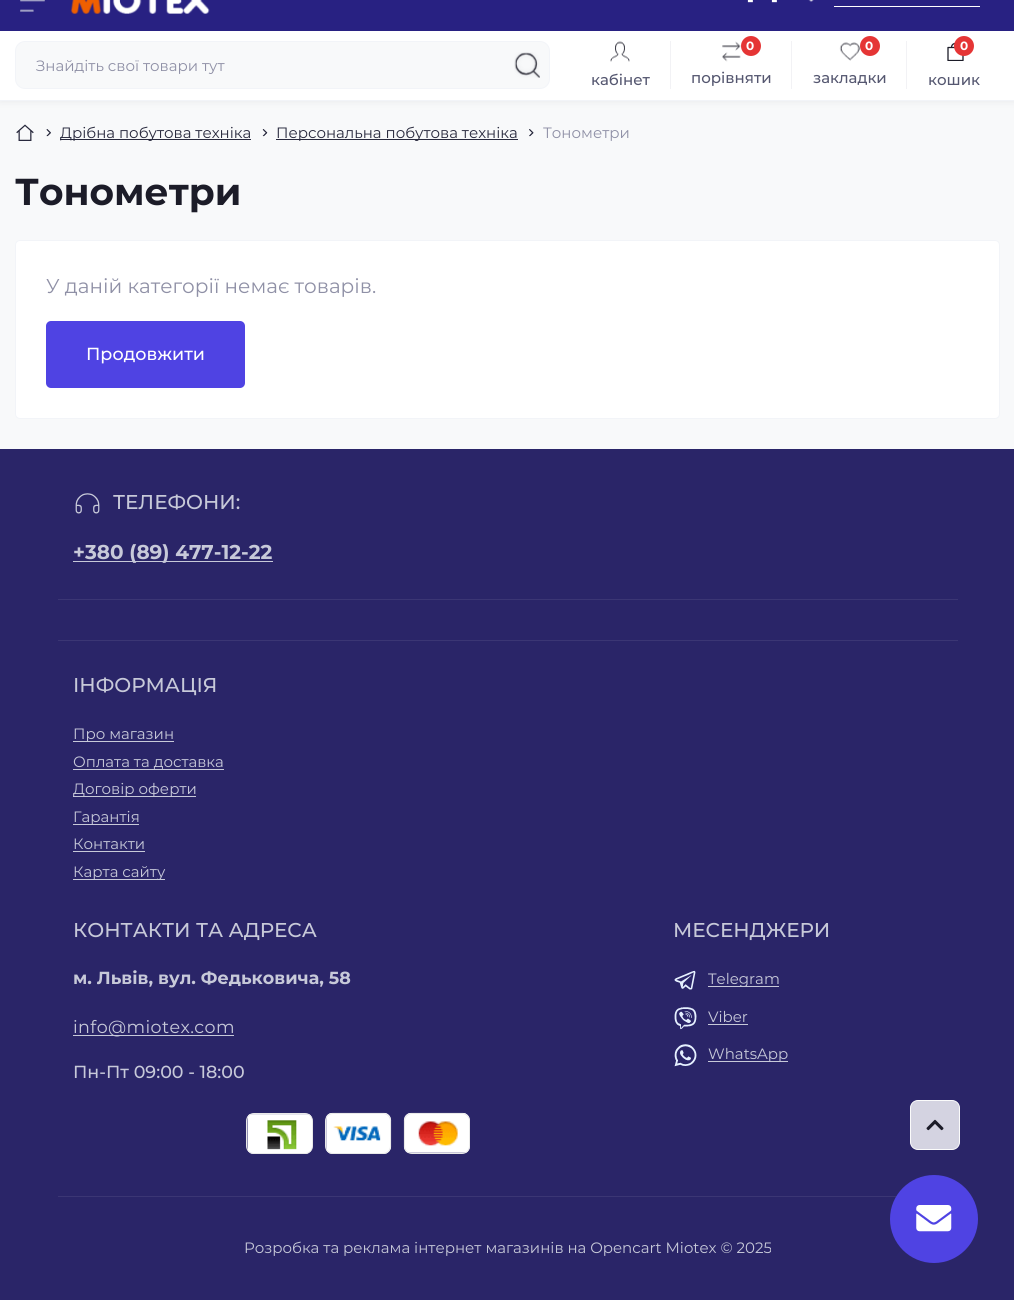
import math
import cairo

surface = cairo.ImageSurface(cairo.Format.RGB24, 1014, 1300)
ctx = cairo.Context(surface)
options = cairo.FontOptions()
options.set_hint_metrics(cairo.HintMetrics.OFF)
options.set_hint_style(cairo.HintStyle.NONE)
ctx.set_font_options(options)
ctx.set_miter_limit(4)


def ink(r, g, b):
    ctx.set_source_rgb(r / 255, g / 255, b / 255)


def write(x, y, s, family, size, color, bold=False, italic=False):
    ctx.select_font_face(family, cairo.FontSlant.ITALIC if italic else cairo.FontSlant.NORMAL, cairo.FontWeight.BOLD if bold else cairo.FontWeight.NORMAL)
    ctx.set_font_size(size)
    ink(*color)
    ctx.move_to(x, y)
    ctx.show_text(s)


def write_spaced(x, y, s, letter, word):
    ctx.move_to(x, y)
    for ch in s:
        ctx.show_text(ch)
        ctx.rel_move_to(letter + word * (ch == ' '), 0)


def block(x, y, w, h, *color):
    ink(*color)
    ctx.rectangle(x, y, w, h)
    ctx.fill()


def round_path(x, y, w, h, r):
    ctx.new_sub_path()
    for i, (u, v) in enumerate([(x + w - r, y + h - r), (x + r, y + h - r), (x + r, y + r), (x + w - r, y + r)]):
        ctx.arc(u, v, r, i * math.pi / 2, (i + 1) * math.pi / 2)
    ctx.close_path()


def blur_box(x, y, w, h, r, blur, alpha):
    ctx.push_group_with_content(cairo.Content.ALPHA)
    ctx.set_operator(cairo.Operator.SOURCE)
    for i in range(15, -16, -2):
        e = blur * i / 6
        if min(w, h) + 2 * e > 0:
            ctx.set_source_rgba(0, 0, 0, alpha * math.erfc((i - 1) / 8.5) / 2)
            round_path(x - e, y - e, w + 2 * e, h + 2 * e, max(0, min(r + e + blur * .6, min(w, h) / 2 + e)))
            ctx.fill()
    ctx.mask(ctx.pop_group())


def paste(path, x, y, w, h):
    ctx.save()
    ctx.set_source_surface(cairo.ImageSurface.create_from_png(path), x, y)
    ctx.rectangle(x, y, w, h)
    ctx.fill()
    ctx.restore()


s1 = dict(family="Montserrat", size=17.5, color=(255, 255, 255), bold=True)
s2 = dict(family="Montserrat", size=15, color=(143, 144, 166))
s3 = dict(family="Montserrat Medium", size=15, color=(85, 87, 112))
s4 = dict(family="Montserrat", size=12, color=(255, 255, 255), bold=True)
s5 = dict(family="Montserrat", size=15, color=(40, 41, 61))
s6 = dict(family="Montserrat", size=37.5, color=(28, 28, 40), bold=True)
s7 = dict(family="Montserrat", size=20, color=(143, 144, 166))
s8 = dict(family="Montserrat Medium", size=17.5, color=(255, 255, 255))
s9 = dict(family="Montserrat Medium", size=20, color=(199, 201, 217))
s10 = dict(family="Montserrat", size=20, color=(199, 201, 217), bold=True)
s11 = dict(family="Montserrat", size=15, color=(199, 201, 217))
s12 = dict(family="Montserrat", size=17.5, color=(199, 201, 217), bold=True)
s13 = dict(family="Montserrat Medium", size=17.5, color=(199, 201, 217))

ink(248, 249, 250)
ctx.paint()
ink(96, 97, 112)
blur_box(0, 29, 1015, 70, 0, 5, 0.16)
block(0, 0, 1014, 31, 40, 33, 130)
paste("pic1.png", 20, 0, 25, 12)
paste("pic2.png", 70, 0, 140, 14)
write(747, 6, "-", **s1)
write(771, 6, "-", **s1)
paste("pic3.png", 808, 0, 6, 2)
block(834, 6, 146, 1, 255, 255, 255)
block(0, 31, 1014, 69, 255, 255, 255)
block(0, 100, 1014, 1, 242, 244, 248)
ink(248, 249, 250)
round_path(15.5, 41.5, 534, 47, 9.5)
ctx.fill_preserve()
ink(242, 244, 248)
ctx.set_line_width(1)
ctx.stroke()
write(36, 71, "Знайдіть свої товари тут", **s2)
paste("pic4.png", 514, 52, 26, 26)
paste("pic5.png", 610, 41, 20, 21)
write(591, 85, "кабінет", **s3)
block(670, 41, 1, 48, 242, 242, 245)
paste("pic6.png", 722, 41, 19, 21)
ink(229, 53, 53)
ctx.arc(751, 46, 10, 0, 2 * math.pi)
ctx.fill()
write(746, 50, "0", **s4)
write(691, 83, "порівняти", **s3)
block(791, 41, 1, 48, 242, 242, 245)
paste("pic7.png", 839, 42, 21, 19)
ink(229, 53, 53)
ctx.arc(870, 46, 10, 0, 2 * math.pi)
ctx.fill()
write(865, 50, "0", **s4)
write(813, 83, "закладки", **s3)
block(906, 41, 1, 48, 242, 242, 245)
ctx.save()
ctx.rectangle(944, 41, 20, 20)
ctx.clip()
ctx.new_path()
ctx.move_to(948, 47.5)
ctx.line_to(963, 47.5)
ctx.line_to(963, 60.5)
ctx.line_to(948, 60.5)
ctx.close_path()
ctx.move_to(951.5, 47.5)
ctx.curve_to(951.5, 42, 960, 42, 960, 47.5)
ink(28, 28, 40)
ctx.set_line_width(1.3)
ctx.set_line_cap(cairo.LineCap.ROUND)
ctx.set_line_join(cairo.LineJoin.ROUND)
ctx.stroke()
ctx.restore()
ink(229, 53, 53)
ctx.arc(964, 46, 10, 0, 2 * math.pi)
ctx.fill()
write(960, 50, "0", **s4)
write(928, 85, "кошик", **s3)
paste("pic8.png", 16, 124, 18, 17)
paste("pic9.png", 46, 129, 5, 8)
block(60, 139, 191, 1, 40, 41, 61)
write(60, 138, "Дрібна побутова техніка", **s5)
paste("pic10.png", 262, 129, 6, 8)
block(276, 139, 242, 1, 40, 41, 61)
write(276, 138, "Персональна побутова техніка", **s5)
paste("pic11.png", 529, 129, 5, 8)
write(543, 138, "Тонометри", **s2)
write(15, 205, "Тонометри", **s6)
ink(255, 255, 255)
round_path(15.5, 240.5, 984, 178, 4.5)
ctx.fill_preserve()
ink(242, 244, 248)
ctx.stroke()
write(46, 293, "У даній категорії немає товарів.", **s7)
ink(79, 67, 227)
round_path(46, 321, 199, 67, 5)
ctx.fill()
write(86, 360, "Продовжити", **s8)
block(0, 449, 1014, 851, 42, 37, 104)
paste("pic12.png", 75, 493, 25, 21)
write(113, 509, "ТЕЛЕФОНИ:", **s9)
block(73, 561, 200, 1, 199, 201, 217)
write(73, 559, "+380 (89) 477-12-22", **s10)
block(58, 599, 900, 1, 59, 54, 116)
block(58, 640, 900, 1, 59, 54, 116)
write(73, 692, "ІНФОРМАЦІЯ", **s9)
block(73, 741, 101, 1, 199, 201, 217)
write(73, 739, "Про магазин", **s11)
write(73, 767, "Оплата та доставка", **s11)
block(73, 769, 151, 1, 199, 201, 217)
block(73, 796, 123, 1, 199, 201, 217)
write(73, 794, "Договір оферти", **s11)
block(73, 824, 66, 1, 199, 201, 217)
write(73, 822, "Гарантія", **s11)
write(73, 849, "Контакти", **s11)
block(73, 851, 72, 1, 199, 201, 217)
block(73, 879, 92, 1, 199, 201, 217)
write(73, 877, "Карта сайту", **s11)
write(73, 937, "КОНТАКТИ ТА АДРЕСА", **s9)
write(73, 984, "м. Львів, вул. Федьковича, 58", **s12)
block(73, 1035, 161, 1, 199, 201, 217)
ctx.select_font_face("Montserrat")
write_spaced(73, 1033, "info@miotex.com", 0.4, 0)
write(73, 1078, "Пн-Пт 09:00 - 18:00", **s13)
paste("pic13.png", 247, 1113, 66, 41)
round_path(246.5, 1113.5, 66, 40, 7.5)
ink(233, 233, 233)
ctx.stroke()
paste("pic14.png", 326, 1112, 66, 42)
round_path(325.5, 1113.5, 65, 40, 7.5)
ctx.stroke()
paste("pic15.png", 403, 1112, 67, 41)
round_path(404.5, 1113.5, 65, 40, 7.5)
ctx.stroke()
write(673, 937, "МЕСЕНДЖЕРИ", **s9)
paste("pic16.png", 674, 970, 22, 20)
block(708, 986, 71, 1, 199, 201, 217)
write(708, 984, "Telegram", **s11)
paste("pic17.png", 674, 1007, 23, 23)
write(708, 1022, "Viber", **s11)
block(708, 1024, 40, 1, 199, 201, 217)
paste("pic18.png", 674, 1044, 23, 23)
block(708, 1061, 80, 1, 199, 201, 217)
write(708, 1059, "WhatsApp", **s11)
block(58, 1196, 839, 1, 59, 54, 116)
write(244, 1253, "Розробка та реклама інтернет магазинів на Opencart Miotex © 2025", **s11)
ink(79, 67, 227)
ctx.new_path()
ctx.arc(934, 1219, 44, 0, 2 * math.pi)
ctx.fill()
paste("pic19.png", 916, 1205, 36, 27)
ink(212, 211, 225)
round_path(910.5, 1100.5, 49, 49, 7.5)
ctx.fill_preserve()
ink(251, 251, 251)
ctx.stroke()
paste("pic20.png", 926, 1119, 18, 12)
surface.write_to_png("screenshot.png")
